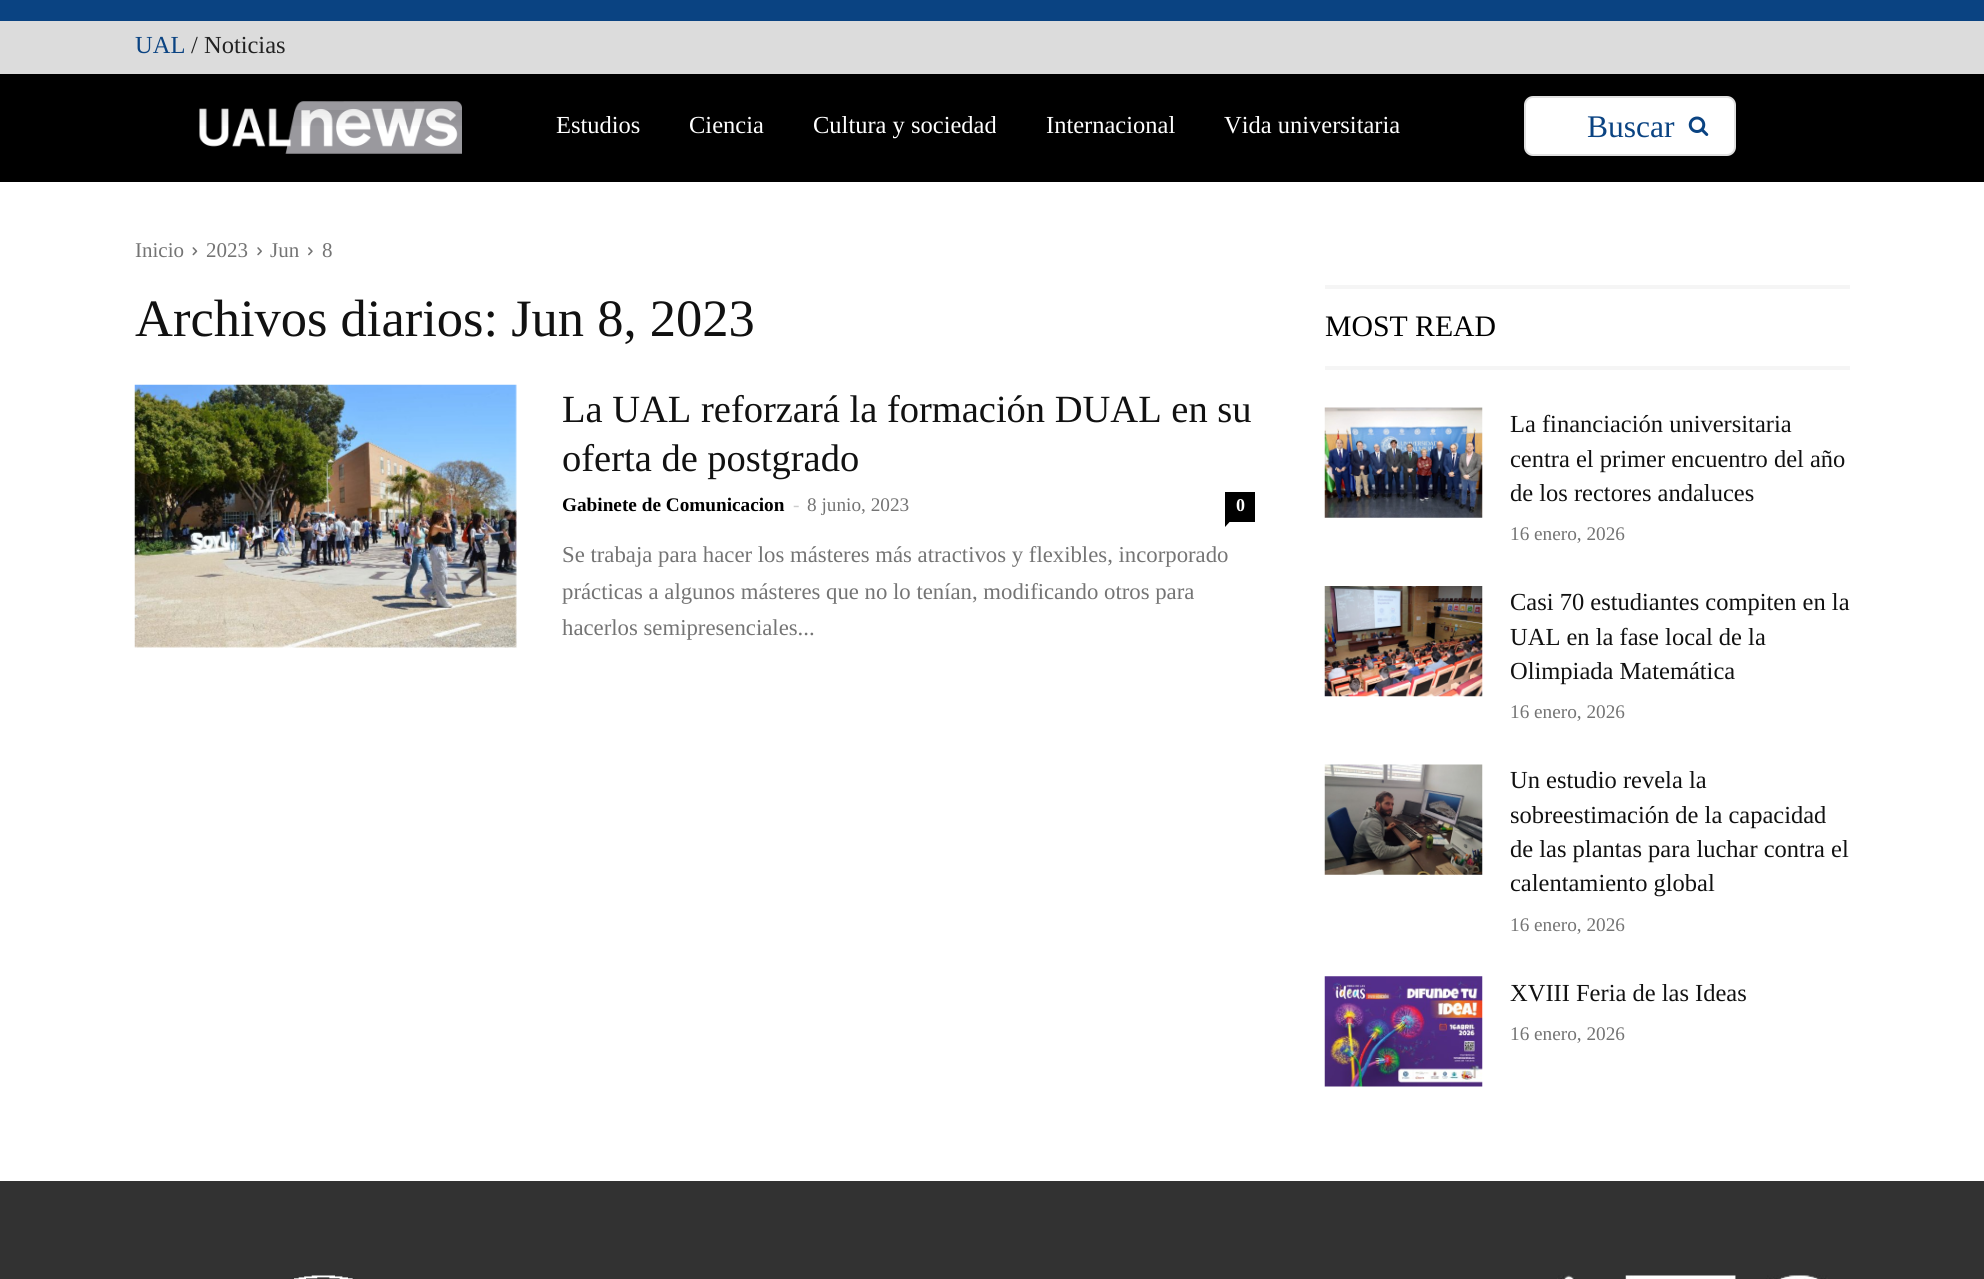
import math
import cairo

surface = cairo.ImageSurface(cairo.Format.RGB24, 1984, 1279)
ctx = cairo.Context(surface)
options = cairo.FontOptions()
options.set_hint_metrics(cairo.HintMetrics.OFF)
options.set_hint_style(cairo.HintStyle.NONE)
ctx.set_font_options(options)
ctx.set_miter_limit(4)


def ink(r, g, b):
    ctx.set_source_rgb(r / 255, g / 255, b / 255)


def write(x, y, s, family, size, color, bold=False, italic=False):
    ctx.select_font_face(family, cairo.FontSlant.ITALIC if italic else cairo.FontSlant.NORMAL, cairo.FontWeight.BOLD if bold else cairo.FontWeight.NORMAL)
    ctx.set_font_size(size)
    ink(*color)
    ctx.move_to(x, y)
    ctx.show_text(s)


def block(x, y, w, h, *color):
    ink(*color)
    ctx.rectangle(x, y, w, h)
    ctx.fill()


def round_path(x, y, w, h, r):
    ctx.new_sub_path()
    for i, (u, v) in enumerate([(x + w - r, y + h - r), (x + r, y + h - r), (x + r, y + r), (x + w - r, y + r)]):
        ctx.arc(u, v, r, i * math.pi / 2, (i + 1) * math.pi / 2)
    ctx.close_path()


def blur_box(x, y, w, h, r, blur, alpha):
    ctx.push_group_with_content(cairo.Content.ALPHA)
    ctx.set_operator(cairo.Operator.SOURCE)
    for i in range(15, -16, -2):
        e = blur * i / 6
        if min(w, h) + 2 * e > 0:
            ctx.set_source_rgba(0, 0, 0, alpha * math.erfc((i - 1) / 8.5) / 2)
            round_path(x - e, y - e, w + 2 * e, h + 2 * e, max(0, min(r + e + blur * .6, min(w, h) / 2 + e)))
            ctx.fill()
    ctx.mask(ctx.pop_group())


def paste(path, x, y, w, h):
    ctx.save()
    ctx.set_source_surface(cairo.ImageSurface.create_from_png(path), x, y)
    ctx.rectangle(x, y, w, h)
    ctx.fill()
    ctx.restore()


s1 = dict(family="Liberation Serif", size=24.5, color=(10, 67, 130))
s2 = dict(family="Liberation Serif", size=24.5, color=(34, 34, 34))
s3 = dict(family="Liberation Serif", size=24.5, color=(255, 255, 255))
s4 = dict(family="Liberation Serif", size=31.5, color=(10, 67, 130))
s5 = dict(family="Liberation Serif", size=21, color=(116, 116, 116))
s6 = dict(family="Liberation Serif", size=52.5, color=(17, 17, 17))
s7 = dict(family="Liberation Serif", size=38.5, color=(17, 17, 17))
s8 = dict(family="Liberation Serif", size=19.25, color=(0, 0, 0), bold=True)
s9 = dict(family="Liberation Serif", size=19.25, color=(204, 204, 204))
s10 = dict(family="Liberation Serif", size=19.25, color=(116, 116, 116))
s11 = dict(family="Liberation Serif", size=18, color=(255, 255, 255), bold=True)
s12 = dict(family="Liberation Serif", size=22.75, color=(116, 116, 116))
s13 = dict(family="Liberation Serif", size=29.75, color=(0, 0, 0))
s14 = dict(family="Liberation Serif", size=24.5, color=(17, 17, 17))

ink(255, 255, 255)
ctx.paint()
block(0, 0, 1984, 21, 10, 67, 130)
block(0, 21, 1984, 53, 220, 220, 220)
block(0, 74, 1984, 108, 0, 0, 0)
paste("pic1.png", 199, 101, 263, 53)
ctx.save()
ctx.rectangle(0, 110, 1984, 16)
ctx.clip()
ink(0, 0, 0)
blur_box(0, -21, 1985, 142, 0, 7, 0.08)
ctx.restore()
write(135, 53, "UAL", **s1)
write(191, 53, "/ Noticias", **s2)
write(556, 133, "Estudios", **s3)
write(689, 133, "Ciencia", **s3)
write(813, 133, "Cultura y sociedad", **s3)
write(1046, 133, "Internacional", **s3)
write(1224, 133, "Vida universitaria", **s3)
round_path(1525, 97, 210, 58, 8)
ctx.fill_preserve()
ink(225, 225, 225)
ctx.stroke()
write(1587, 137, "Buscar", **s4)
paste("pic2.png", 1688, 116, 21, 20)
write(135, 257, "Inicio", **s5)
paste("pic3.png", 192, 247, 6, 9)
write(206, 257, "2023", **s5)
paste("pic4.png", 257, 247, 5, 9)
write(270, 257, "Jun", **s5)
paste("pic5.png", 308, 247, 5, 9)
write(322, 257, "8", **s5)
write(135, 336, "Archivos diarios: Jun 8, 2023", **s6)
paste("pic6.png", 134, 384, 383, 264)
write(562, 422, "La UAL reforzará la formación DUAL en su", **s7)
write(562, 471, "oferta de postgrado", **s7)
write(562, 511, "Gabinete de Comunicacion", **s8)
write(793, 511, "-", **s9)
write(807, 511, "8 junio, 2023", **s10)
block(1225, 492, 30, 30, 0, 0, 0)
write(1236, 511, "0", **s11)
ink(0, 0, 0)
ctx.new_path()
ctx.move_to(1225, 521.5)
ctx.line_to(1230, 521.5)
ctx.line_to(1225, 527)
ctx.close_path()
ctx.fill()
write(562, 562, "Se trabaja para hacer los másteres más atractivos y flexibles, incorporado", **s12)
write(562, 599, "prácticas a algunos másteres que no lo tenían, modificando otros para", **s12)
write(562, 635, "hacerlos semipresenciales...", **s12)
block(1325, 285, 525, 4, 245, 245, 245)
write(1325, 336, "MOST READ", **s13)
block(1325, 366, 525, 4, 245, 245, 245)
paste("pic7.png", 1324, 407, 159, 111)
write(1510, 432, "La financiación universitaria", **s14)
write(1510, 467, "centra el primer encuentro del año", **s14)
write(1510, 501, "de los rectores andaluces", **s14)
write(1510, 540, "16 enero, 2026", **s10)
paste("pic8.png", 1324, 586, 159, 111)
write(1510, 610, "Casi 70 estudiantes compiten en la", **s14)
write(1510, 645, "UAL en la fase local de la", **s14)
write(1510, 679, "Olimpiada Matemática", **s14)
write(1510, 718, "16 enero, 2026", **s10)
paste("pic9.png", 1324, 764, 159, 111)
write(1510, 788, "Un estudio revela la", **s14)
write(1510, 823, "sobreestimación de la capacidad", **s14)
write(1510, 857, "de las plantas para luchar contra el", **s14)
write(1510, 891, "calentamiento global", **s14)
write(1510, 931, "16 enero, 2026", **s10)
paste("pic10.png", 1324, 976, 159, 111)
write(1510, 1001, "XVIII Feria de las Ideas", **s14)
write(1510, 1040, "16 enero, 2026", **s10)
block(0, 1181, 1984, 98, 50, 50, 50)
paste("pic11.png", 294, 1275, 59, 4)
paste("pic12.png", 1557, 1275, 18, 4)
paste("pic13.png", 1625, 1275, 203, 4)
surface.write_to_png("screenshot.png")
